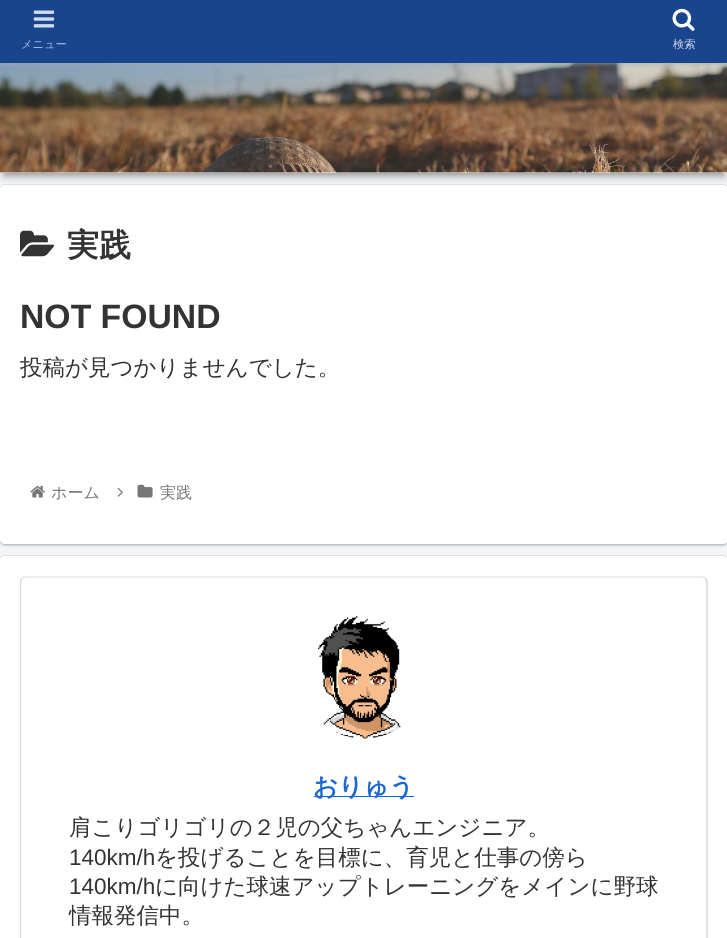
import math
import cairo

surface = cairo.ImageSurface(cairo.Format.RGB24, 727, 938)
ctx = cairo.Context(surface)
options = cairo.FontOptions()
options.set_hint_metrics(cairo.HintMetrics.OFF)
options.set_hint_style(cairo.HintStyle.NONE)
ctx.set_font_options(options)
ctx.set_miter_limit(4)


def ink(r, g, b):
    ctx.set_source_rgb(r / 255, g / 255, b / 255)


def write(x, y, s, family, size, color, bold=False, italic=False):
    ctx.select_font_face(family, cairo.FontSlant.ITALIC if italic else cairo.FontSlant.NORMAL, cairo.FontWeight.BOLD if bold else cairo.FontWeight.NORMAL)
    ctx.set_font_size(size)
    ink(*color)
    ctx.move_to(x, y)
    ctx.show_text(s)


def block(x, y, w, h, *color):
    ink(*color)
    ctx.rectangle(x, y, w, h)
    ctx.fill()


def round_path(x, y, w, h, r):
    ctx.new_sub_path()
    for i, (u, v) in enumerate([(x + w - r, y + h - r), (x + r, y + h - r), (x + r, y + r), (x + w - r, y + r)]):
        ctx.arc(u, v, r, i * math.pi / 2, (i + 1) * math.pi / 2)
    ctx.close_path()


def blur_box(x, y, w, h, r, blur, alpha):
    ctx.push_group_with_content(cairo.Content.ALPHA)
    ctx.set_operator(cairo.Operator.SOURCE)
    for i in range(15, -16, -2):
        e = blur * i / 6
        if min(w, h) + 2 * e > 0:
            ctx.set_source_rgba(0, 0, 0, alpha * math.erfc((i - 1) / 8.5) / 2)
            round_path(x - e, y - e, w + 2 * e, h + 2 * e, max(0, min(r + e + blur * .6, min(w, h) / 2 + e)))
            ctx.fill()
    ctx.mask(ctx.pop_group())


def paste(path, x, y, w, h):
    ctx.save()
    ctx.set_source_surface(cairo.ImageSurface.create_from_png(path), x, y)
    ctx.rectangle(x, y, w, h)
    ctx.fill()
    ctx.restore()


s1 = dict(family="WenQuanYi Zen Hei Medium", size=11.25, color=(172, 188, 214))
s2 = dict(family="WenQuanYi Zen Hei Medium", size=11.25, color=(209, 218, 232))
s3 = dict(family="WenQuanYi Zen Hei", size=32, color=(51, 51, 51), bold=True)
s4 = dict(family="Liberation Sans", size=33.75, color=(51, 51, 51), bold=True)
s5 = dict(family="WenQuanYi Zen Hei Medium", size=22.5, color=(51, 51, 51))
s6 = dict(family="WenQuanYi Zen Hei Medium", size=16, color=(119, 119, 119))
s7 = dict(family="WenQuanYi Zen Hei", size=24.75, color=(25, 103, 210), bold=True)
s8 = dict(family="Liberation Sans", size=22.5, color=(51, 51, 51))

ink(244, 245, 247)
ctx.paint()
ink(0, 0, 0)
blur_box(4, 69, 720, 107, 0, 6, 0.18)
blur_box(4, 69, 720, 107, 0, 3, 0.24)
block(0, 172, 727, 1, 255, 255, 255)
paste("pic3.png", 0, 63, 727, 110)
ink(169, 169, 169)
blur_box(0, 0, 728, 63, 0, 3, 1)
block(0, 0, 727, 63, 25, 68, 142)
paste("pic1.png", 33, 10, 22, 18)
write(21, 48, "メニュー", **s1)
paste("pic2.png", 672, 8, 23, 23)
write(673, 48, "検索", **s2)
round_path(-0.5, 184.5, 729, 360, 5.5)
ctx.set_source_rgba(0, 0, 0, 0.08)
ctx.set_line_width(1)
ctx.stroke()
ink(0, 0, 0)
blur_box(0, 188, 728, 358, 5, 1, 0.16)
ink(255, 255, 255)
round_path(0, 185, 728, 359, 5)
ctx.fill()
paste("pic4.png", 20, 230, 35, 27)
write(67, 256, "実践", **s3)
write(20, 328, "NOT FOUND", **s4)
write(20, 375, "投稿が見つかりませんでした。", **s5)
paste("pic5.png", 30, 485, 15, 13)
write(51, 498, "ホーム", **s6)
paste("pic6.png", 117, 487, 6, 10)
paste("pic7.png", 137, 484, 16, 14)
write(160, 498, "実践", **s6)
round_path(-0.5, 555.5, 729, 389, 5.5)
ink(224, 225, 227)
ctx.stroke()
ink(255, 255, 255)
round_path(0, 556, 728, 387, 5)
ctx.fill()
ctx.new_path()
ctx.move_to(22, 578)
ctx.curve_to(22.5, 577.5, 24, 577, 25, 577)
ctx.line_to(702.5, 577)
ctx.curve_to(703.5, 577, 705, 577.5, 705.5, 578)
ink(227, 227, 227)
ctx.set_line_width(1.2)
ctx.stroke()
ctx.new_path()
ctx.move_to(705.5, 578)
ctx.line_to(707, 581)
ctx.line_to(707, 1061)
ctx.line_to(705.5, 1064.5)
ink(206, 206, 206)
ctx.stroke()
ctx.new_path()
ctx.move_to(22, 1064.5)
ctx.line_to(20.5, 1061)
ctx.line_to(20.5, 581)
ctx.line_to(22, 578)
ink(214, 214, 214)
ctx.stroke()
paste("pic8.png", 318, 616, 83, 123)
block(314, 796, 100, 1, 25, 103, 210)
write(313, 795, "おりゅう", **s7)
write(69, 835, "肩こりゴリゴリの２児の父ちゃんエンジニア。", **s5)
write(69, 865, "140km/h", **s8)
write(155, 865, "を投げることを目標に、育児と仕事の傍ら", **s5)
write(69, 894, "140km/h", **s8)
write(155, 894, "に向けた球速アップトレーニングをメインに野球", **s5)
write(69, 923, "情報発信中。", **s5)
surface.write_to_png("screenshot.png")
